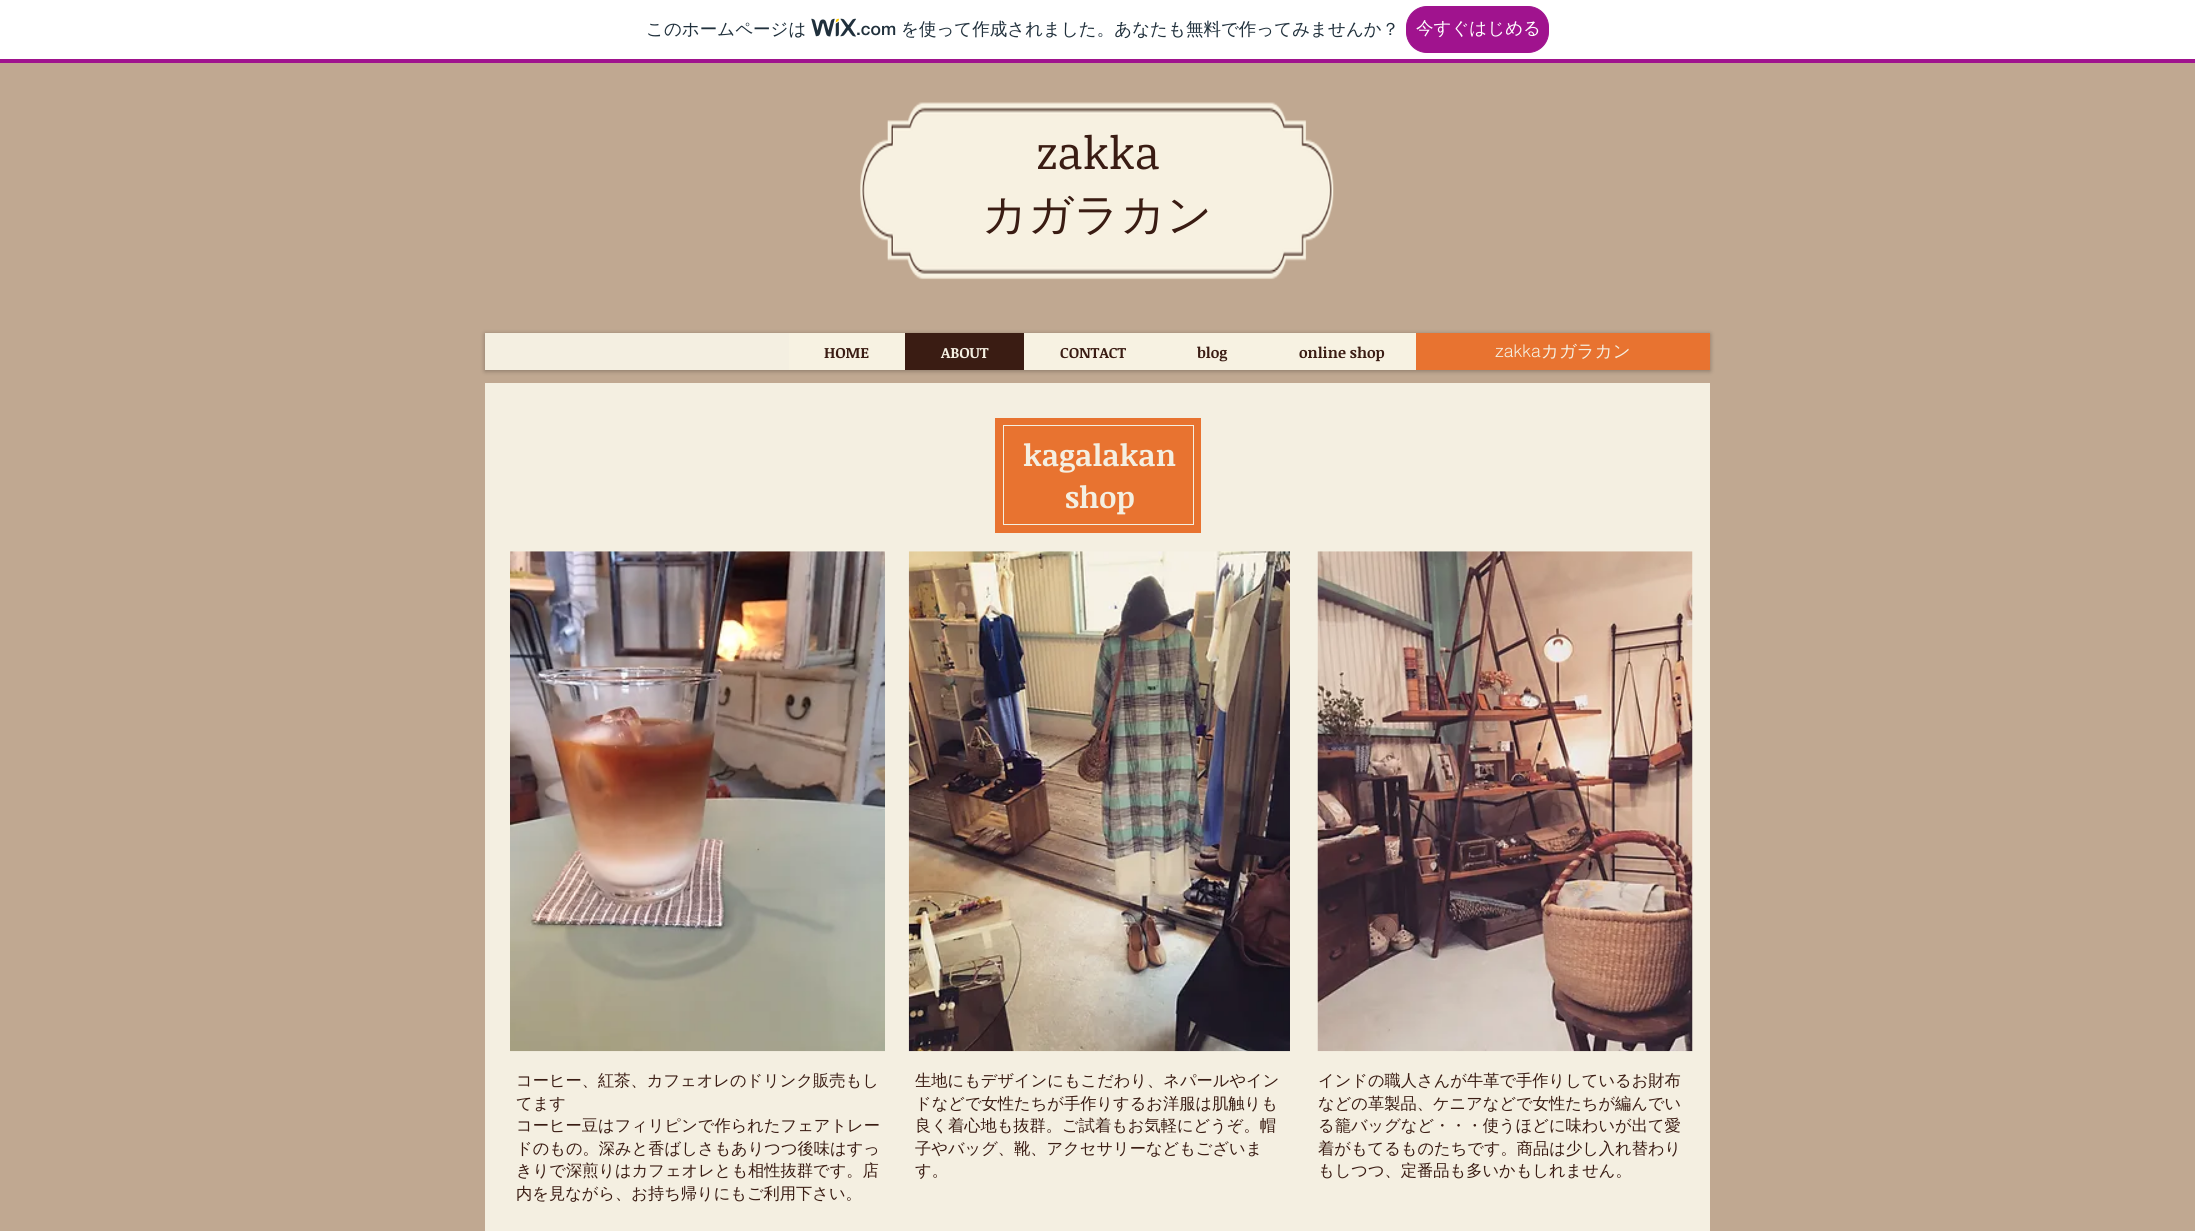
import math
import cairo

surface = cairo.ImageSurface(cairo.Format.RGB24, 2195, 1231)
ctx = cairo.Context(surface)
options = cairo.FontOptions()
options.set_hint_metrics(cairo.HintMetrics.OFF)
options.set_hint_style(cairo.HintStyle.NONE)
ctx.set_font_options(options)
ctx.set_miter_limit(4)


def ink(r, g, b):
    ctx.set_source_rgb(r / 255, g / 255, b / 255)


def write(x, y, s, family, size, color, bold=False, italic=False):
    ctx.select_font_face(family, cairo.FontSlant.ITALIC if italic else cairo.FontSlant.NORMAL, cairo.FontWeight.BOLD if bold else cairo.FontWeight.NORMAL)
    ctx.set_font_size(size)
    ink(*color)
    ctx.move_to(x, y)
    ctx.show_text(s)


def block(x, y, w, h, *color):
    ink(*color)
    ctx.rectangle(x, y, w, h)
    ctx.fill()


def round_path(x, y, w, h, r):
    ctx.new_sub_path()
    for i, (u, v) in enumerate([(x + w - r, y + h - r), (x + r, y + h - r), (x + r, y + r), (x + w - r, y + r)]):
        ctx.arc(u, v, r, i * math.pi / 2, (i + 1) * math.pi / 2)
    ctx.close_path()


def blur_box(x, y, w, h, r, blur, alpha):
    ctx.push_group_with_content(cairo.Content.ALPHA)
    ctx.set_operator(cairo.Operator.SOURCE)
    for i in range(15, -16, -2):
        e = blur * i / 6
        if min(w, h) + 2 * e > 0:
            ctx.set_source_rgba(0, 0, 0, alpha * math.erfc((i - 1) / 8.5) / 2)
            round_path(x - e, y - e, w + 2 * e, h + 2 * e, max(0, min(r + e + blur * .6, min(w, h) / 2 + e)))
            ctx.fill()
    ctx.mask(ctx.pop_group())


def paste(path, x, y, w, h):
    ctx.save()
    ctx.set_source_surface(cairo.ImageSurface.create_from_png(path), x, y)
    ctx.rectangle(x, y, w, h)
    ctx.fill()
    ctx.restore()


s1 = dict(family="WenQuanYi Zen Hei Medium", size=17.5, color=(32, 48, 60))
s2 = dict(family="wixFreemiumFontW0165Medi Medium", size=17.5, color=(32, 48, 60))
s3 = dict(family="WenQuanYi Zen Hei Medium", size=17.5, color=(255, 255, 255))
s4 = dict(family="Noticia Text", size=45, color=(58, 28, 19))
s5 = dict(family="WenQuanYi Zen Hei Medium", size=45, color=(58, 28, 19))
s6 = dict(family="Noticia Text", size=15, color=(58, 28, 19), bold=True)
s7 = dict(family="Noticia Text", size=15, color=(244, 239, 225), bold=True)
s8 = dict(family="helvetica Light", size=17.5, color=(244, 239, 225))
s9 = dict(family="WenQuanYi Zen Hei Medium", size=17.5, color=(244, 239, 225))
s10 = dict(family="Noticia Text", size=30, color=(244, 239, 225), bold=True)
s11 = dict(family="WenQuanYi Zen Hei Medium", size=16.25, color=(58, 28, 19))

ink(255, 255, 255)
ctx.paint()
block(0, 59, 2195, 4, 160, 19, 142)
write(646, 35, "このホームページは", **s1)
paste("pic1.png", 811, 18, 45, 19)
write(856, 35, ".com", **s2)
write(901, 35, "を使って作成されました。あなたも無料で作ってみませんか？", **s1)
ink(160, 19, 142)
round_path(1406.5, 6.5, 142, 46, 20.5)
ctx.fill_preserve()
ctx.set_line_width(1)
ctx.stroke()
write(1416, 34, "今すぐはじめる", **s3)
block(0, 63, 2195, 1168, 192, 168, 145)
paste("pic2.png", 860, 102, 474, 178)
write(1036, 169, "zakka", **s4)
write(982, 230, "カガラカン", **s5)
ink(0, 0, 0)
blur_box(485, 334, 1225, 37, 0, 2.5, 0.3)
block(485, 333, 304, 37, 244, 239, 225)
block(789, 333, 627, 37, 247, 242, 226)
write(824, 358, "HOME", **s6)
block(905, 333, 119, 37, 58, 28, 19)
write(941, 358, "ABOUT", **s7)
write(1060, 358, "CONTACT", **s6)
write(1197, 358, "blog", **s6)
write(1299, 358, "online shop", **s6)
block(1416, 333, 294, 37, 232, 115, 48)
write(1495, 357, "zakka", **s8)
write(1541, 357, "カガラカン", **s9)
block(485, 383, 1225, 848, 244, 239, 225)
block(995, 418, 206, 115, 232, 115, 48)
ctx.rectangle(1003.5, 425.5, 190, 99)
ink(244, 239, 225)
ctx.stroke()
write(1023, 466, "kagalakan", **s10)
write(1065, 508, "shop", **s10)
paste("pic3.png", 510, 551, 375, 501)
paste("pic4.png", 908, 551, 382, 501)
paste("pic5.png", 1317, 551, 376, 501)
write(516, 1086, "コーヒー、紅茶、カフェオレのドリンク販売もし", **s11)
write(516, 1109, "てます", **s11)
write(516, 1131, "コーヒー豆はフィリピンで作られたフェアトレー", **s11)
write(516, 1154, "ドのもの。深みと香ばしさもありつつ後味はすっ", **s11)
write(516, 1176, "きりで深煎りはカフェオレとも相性抜群です。店", **s11)
write(516, 1199, "内を見ながら、お持ち帰りにもご利用下さい。", **s11)
write(915, 1086, "生地にもデザインにもこだわり、ネパールやイン", **s11)
write(915, 1109, "ドなどで女性たちが手作りするお洋服は肌触りも", **s11)
write(915, 1131, "良く着心地も抜群。ご試着もお気軽にどうぞ。帽", **s11)
write(915, 1154, "子やバッグ、靴、アクセサリーなどもございま", **s11)
write(915, 1176, "す。", **s11)
write(1318, 1086, "インドの職人さんが牛革で手作りしているお財布", **s11)
write(1318, 1109, "などの革製品、ケニアなどで女性たちが編んでい", **s11)
write(1318, 1131, "る籠バッグなど・・・使うほどに味わいが出て愛", **s11)
write(1318, 1154, "着がもてるものたちです。商品は少し入れ替わり", **s11)
write(1318, 1176, "もしつつ、定番品も多いかもしれません。", **s11)
surface.write_to_png("screenshot.png")
